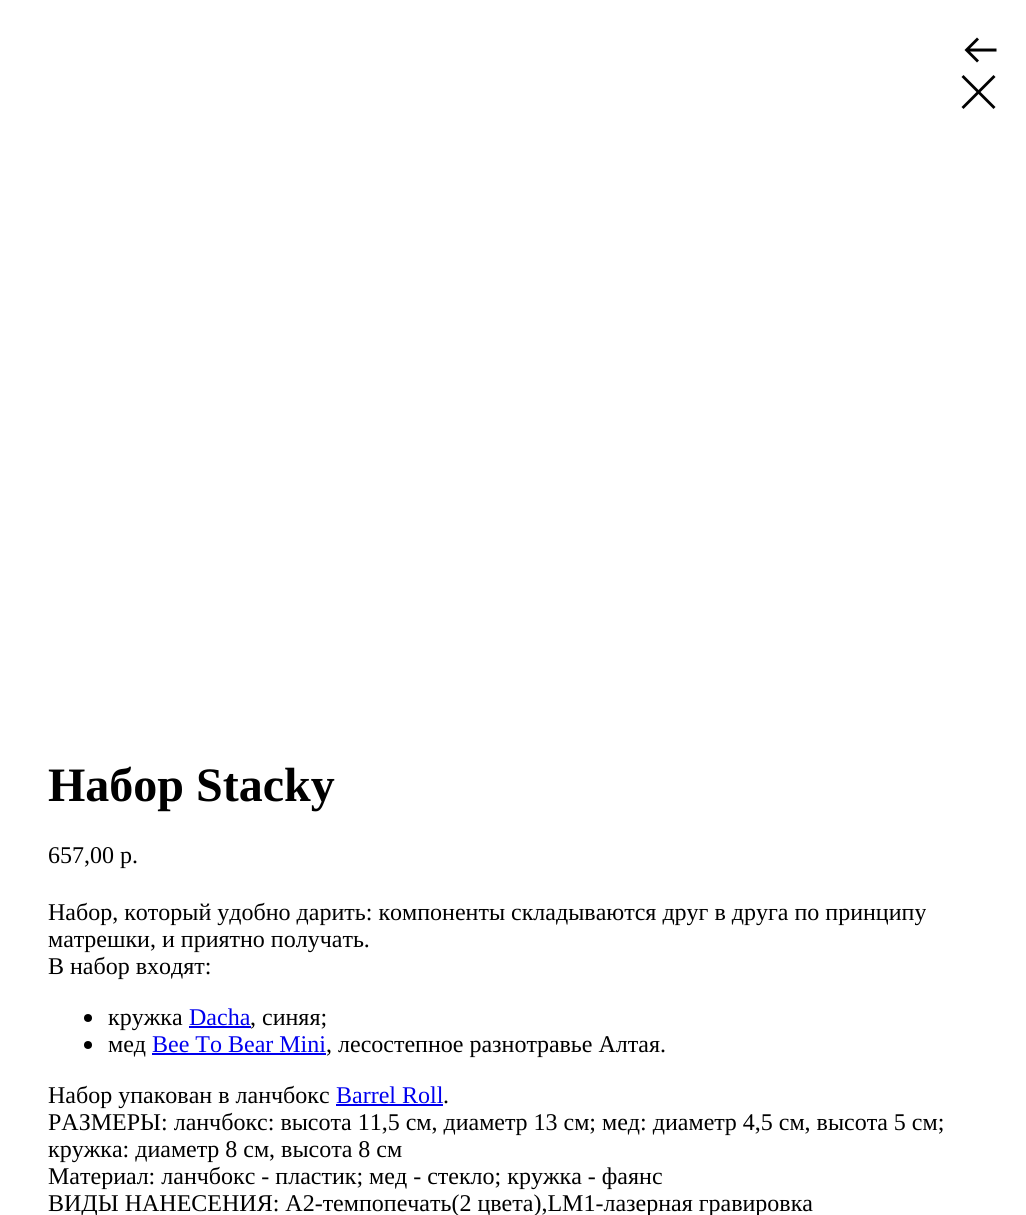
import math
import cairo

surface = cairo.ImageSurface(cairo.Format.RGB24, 1026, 1215)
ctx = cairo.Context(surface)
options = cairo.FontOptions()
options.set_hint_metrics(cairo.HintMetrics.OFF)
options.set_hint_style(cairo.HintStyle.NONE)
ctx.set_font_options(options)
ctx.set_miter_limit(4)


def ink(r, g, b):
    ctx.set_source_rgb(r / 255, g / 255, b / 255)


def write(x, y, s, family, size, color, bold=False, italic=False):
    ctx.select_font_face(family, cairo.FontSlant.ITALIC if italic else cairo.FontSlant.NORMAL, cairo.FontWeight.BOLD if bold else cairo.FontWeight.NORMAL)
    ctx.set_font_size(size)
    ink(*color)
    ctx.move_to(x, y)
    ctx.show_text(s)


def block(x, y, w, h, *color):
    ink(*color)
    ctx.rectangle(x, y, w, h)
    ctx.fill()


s1 = dict(family="Liberation Serif", size=48, color=(0, 0, 0), bold=True)
s2 = dict(family="Liberation Serif", size=24, color=(0, 0, 0))
s3 = dict(family="Liberation Serif", size=24, color=(0, 0, 238))

ink(255, 255, 255)
ctx.paint()
ink(0, 0, 0)
ctx.new_path()
ctx.move_to(977, 37.5)
ctx.line_to(979, 39.5)
ctx.line_to(970, 48.5)
ctx.line_to(996.5, 48.5)
ctx.line_to(996.5, 51.5)
ctx.line_to(970, 51.5)
ctx.line_to(979, 60.5)
ctx.line_to(977, 62.5)
ctx.line_to(964.5, 50)
ctx.close_path()
ctx.fill()
ctx.set_fill_rule(cairo.FillRule.EVEN_ODD)
ctx.new_path()
ctx.move_to(961.5, 77)
ctx.line_to(963.5, 75)
ctx.line_to(995.5, 107)
ctx.line_to(993.5, 109)
ctx.close_path()
ctx.fill()
ctx.new_path()
ctx.move_to(993.5, 75)
ctx.line_to(995.5, 77)
ctx.line_to(963.5, 109)
ctx.line_to(961.5, 107)
ctx.close_path()
ctx.fill()
write(48, 801, "Набор Stacky", **s1)
write(48, 863, "657,00 р.", **s2)
write(48, 920, "Набор, который удобно дарить: компоненты складываются друг в друга по принципу", **s2)
write(48, 947, "матрешки, и приятно получать.", **s2)
write(48, 974, "В набор входят:", **s2)
ctx.new_path()
ctx.arc(88, 1018, 4, 0, 2 * math.pi)
ctx.fill()
write(108, 1025, "кружка", **s2)
write(189, 1025, "Dacha", **s3)
block(189, 1026, 62, 2, 0, 0, 238)
write(250, 1025, ", синяя;", **s2)
ctx.new_path()
ctx.arc(88, 1045, 4, 0, 2 * math.pi)
ctx.fill()
write(108, 1052, "мед", **s2)
write(152, 1052, "Bee To Bear Mini", **s3)
block(152, 1053, 174, 2, 0, 0, 238)
write(326, 1052, ", лесостепное разнотравье Алтая.", **s2)
write(48, 1103, "Набор упакован в ланчбокс", **s2)
write(336, 1103, "Barrel Roll", **s3)
block(336, 1104, 107, 2, 0, 0, 238)
write(443, 1103, ".", **s2)
write(48, 1130, "РАЗМЕРЫ: ланчбокс: высота 11,5 см, диаметр 13 см; мед: диаметр 4,5 см, высота 5 см;", **s2)
write(48, 1157, "кружка: диаметр 8 см, высота 8 см", **s2)
write(48, 1184, "Материал: ланчбокс - пластик; мед - стекло; кружка - фаянс", **s2)
write(48, 1211, "ВИДЫ НАНЕСЕНИЯ: А2-темпопечать(2 цвета),LМ1-лазерная гравировка", **s2)
surface.write_to_png("screenshot.png")
